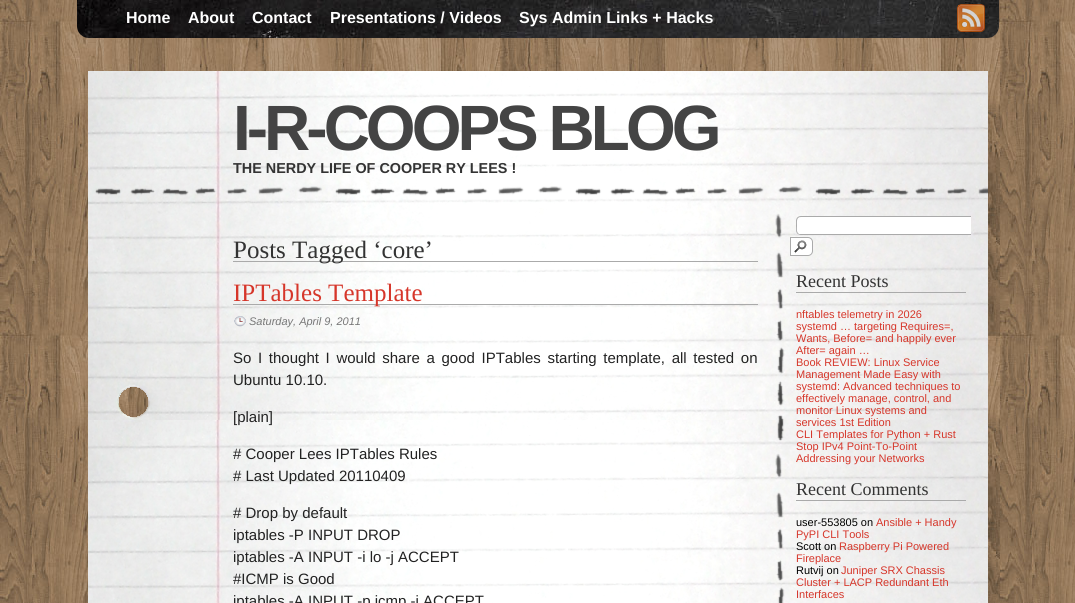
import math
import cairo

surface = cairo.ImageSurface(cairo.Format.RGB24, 1075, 603)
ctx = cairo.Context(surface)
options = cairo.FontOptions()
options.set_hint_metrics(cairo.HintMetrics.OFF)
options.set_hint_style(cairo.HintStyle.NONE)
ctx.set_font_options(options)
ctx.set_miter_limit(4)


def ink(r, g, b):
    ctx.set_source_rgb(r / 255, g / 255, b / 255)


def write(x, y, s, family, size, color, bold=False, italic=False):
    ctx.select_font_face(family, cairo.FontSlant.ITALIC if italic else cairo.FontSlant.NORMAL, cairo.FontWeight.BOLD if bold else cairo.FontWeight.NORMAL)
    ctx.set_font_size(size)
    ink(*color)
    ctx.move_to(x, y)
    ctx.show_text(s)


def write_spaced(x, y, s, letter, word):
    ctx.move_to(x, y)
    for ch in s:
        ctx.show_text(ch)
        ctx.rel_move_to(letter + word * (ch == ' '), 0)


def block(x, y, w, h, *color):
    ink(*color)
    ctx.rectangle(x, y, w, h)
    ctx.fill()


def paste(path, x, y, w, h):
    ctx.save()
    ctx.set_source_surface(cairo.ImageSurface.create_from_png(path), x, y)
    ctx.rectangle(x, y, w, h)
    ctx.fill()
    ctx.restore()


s1 = dict(family="Liberation Sans", size=16, color=(255, 255, 255), bold=True)
s2 = dict(family="Liberation Sans", size=14.4, color=(51, 51, 51), bold=True)
s3 = dict(family="Liberation Serif", size=25, color=(51, 51, 51))
s4 = dict(family="Liberation Serif", size=25, color=(214, 54, 42))
s5 = dict(family="Liberation Sans", size=11, color=(119, 119, 119), italic=True)
s6 = dict(family="Liberation Sans", size=15, color=(34, 34, 34))
s7 = dict(family="Liberation Serif", size=18, color=(51, 51, 51))
s8 = dict(family="Liberation Sans", size=11, color=(214, 54, 42))
s9 = dict(family="Liberation Sans", size=11, color=(0, 0, 0))

ink(255, 255, 255)
ctx.paint()
paste("pic1.png", 0, 0, 1075, 603)
paste("pic2.png", 77, 0, 922, 38)
write(126, 23, "Home", **s1)
write(188, 23, "About", **s1)
write(252, 23, "Contact", **s1)
write(330, 23, "Presentations / Videos", **s1)
write(519, 23, "Sys Admin Links + Hacks", **s1)
paste("pic3.png", 957, 4, 28, 28)
paste("pic4.png", 88, 71, 900, 532)
paste("pic5.png", 95, 186, 893, 10)
ctx.set_font_size(64)
ink(68, 68, 68)
write_spaced(233, 150, "I-R-COOPS BLOG", -4, 0)
write(233, 173, "THE NERDY LIFE OF COOPER RY LEES !", **s2)
paste("pic6.png", 775, 213, 10, 390)
block(233, 261, 525, 1, 170, 170, 170)
write(233, 258, "Posts Tagged ‘core’", **s3)
block(233, 304, 525, 1, 170, 170, 170)
write(233, 301, "IPTables Template", **s4)
paste("pic7.png", 234, 316, 12, 11)
write(249, 325, "Saturday, April 9, 2011", **s5)
ctx.select_font_face("Liberation Sans")
ctx.set_font_size(15)
ink(34, 34, 34)
write_spaced(233, 363, "So I thought I would share a good IPTables starting template, all tested on", 0, 2.5)
write(233, 385, "Ubuntu 10.10.", **s6)
write(233, 422, "[plain]", **s6)
write(233, 459, "# Cooper Lees IPTables Rules", **s6)
write(233, 481, "# Last Updated 20110409", **s6)
write(233, 518, "# Drop by default", **s6)
write(233, 540, "iptables -P INPUT DROP", **s6)
write(233, 562, "iptables -A INPUT -i lo -j ACCEPT", **s6)
write(233, 584, "#ICMP is Good", **s6)
write(233, 606, "iptables -A INPUT -p icmp -j ACCEPT", **s6)
ink(255, 255, 255)
ctx.new_path()
ctx.move_to(801, 216)
ctx.line_to(971, 216)
ctx.line_to(971, 235)
ctx.line_to(801, 235)
ctx.curve_to(798, 235, 796, 233, 796, 230)
ctx.line_to(796, 221)
ctx.curve_to(796, 218, 798, 216, 801, 216)
ctx.close_path()
ctx.fill()
ink(170, 170, 170)
ctx.set_fill_rule(cairo.FillRule.EVEN_ODD)
ctx.new_path()
ctx.move_to(801, 216)
ctx.line_to(971, 216)
ctx.line_to(971, 235)
ctx.line_to(801, 235)
ctx.curve_to(798, 235, 796, 233, 796, 230)
ctx.line_to(796, 221)
ctx.curve_to(796, 218, 798, 216, 801, 216)
ctx.close_path()
ctx.move_to(801, 217)
ctx.line_to(971, 217)
ctx.line_to(971, 234)
ctx.line_to(799, 234)
ctx.curve_to(796, 232, 797, 228, 797, 226)
ctx.curve_to(797, 222, 796, 217, 801, 217)
ctx.close_path()
ctx.fill()
ink(255, 255, 255)
ctx.new_path()
ctx.move_to(790, 237)
ctx.line_to(808, 237)
ctx.curve_to(811, 237, 813, 239, 813, 242)
ctx.line_to(813, 251)
ctx.curve_to(813, 254, 811, 256, 808, 256)
ctx.line_to(790, 256)
ctx.close_path()
ctx.fill()
paste("pic8.png", 794, 240, 13, 14)
ctx.new_path()
ctx.move_to(790.5, 237.5)
ctx.line_to(808, 237.5)
ctx.curve_to(810.5, 237.5, 812.5, 239.5, 812.5, 242)
ctx.line_to(812.5, 251)
ctx.curve_to(812.5, 253.5, 810.5, 255.5, 808, 255.5)
ctx.line_to(790.5, 255.5)
ctx.close_path()
ink(170, 170, 170)
ctx.set_line_width(1)
ctx.stroke()
block(796, 292, 170, 1, 170, 170, 170)
write(796, 287, "Recent Posts", **s7)
write(796, 318, "nftables telemetry in 2026", **s8)
write(796, 330, "systemd … targeting Requires=,", **s8)
write(796, 342, "Wants, Before= and happily ever", **s8)
write(796, 354, "After= again …", **s8)
write(796, 366, "Book REVIEW: Linux Service", **s8)
write(796, 378, "Management Made Easy with", **s8)
write(796, 390, "systemd: Advanced techniques to", **s8)
write(796, 402, "effectively manage, control, and", **s8)
write(796, 414, "monitor Linux systems and", **s8)
write(796, 426, "services 1st Edition", **s8)
write(796, 438, "CLI Templates for Python + Rust", **s8)
write(796, 450, "Stop IPv4 Point-To-Point", **s8)
write(796, 462, "Addressing your Networks", **s8)
block(796, 500, 170, 1, 170, 170, 170)
write(796, 495, "Recent Comments", **s7)
write(796, 526, "user-553805 on", **s9)
write(876, 526, "Ansible + Handy", **s8)
write(796, 538, "PyPI CLI Tools", **s8)
write(796, 550, "Scott on", **s9)
write(839, 550, "Raspberry Pi Powered", **s8)
write(796, 562, "Fireplace", **s8)
write(796, 574, "Rutvij on", **s9)
write(841, 574, "Juniper SRX Chassis", **s8)
write(796, 586, "Cluster + LACP Redundant Eth", **s8)
write(796, 598, "Interfaces", **s8)
surface.write_to_png("screenshot.png")
